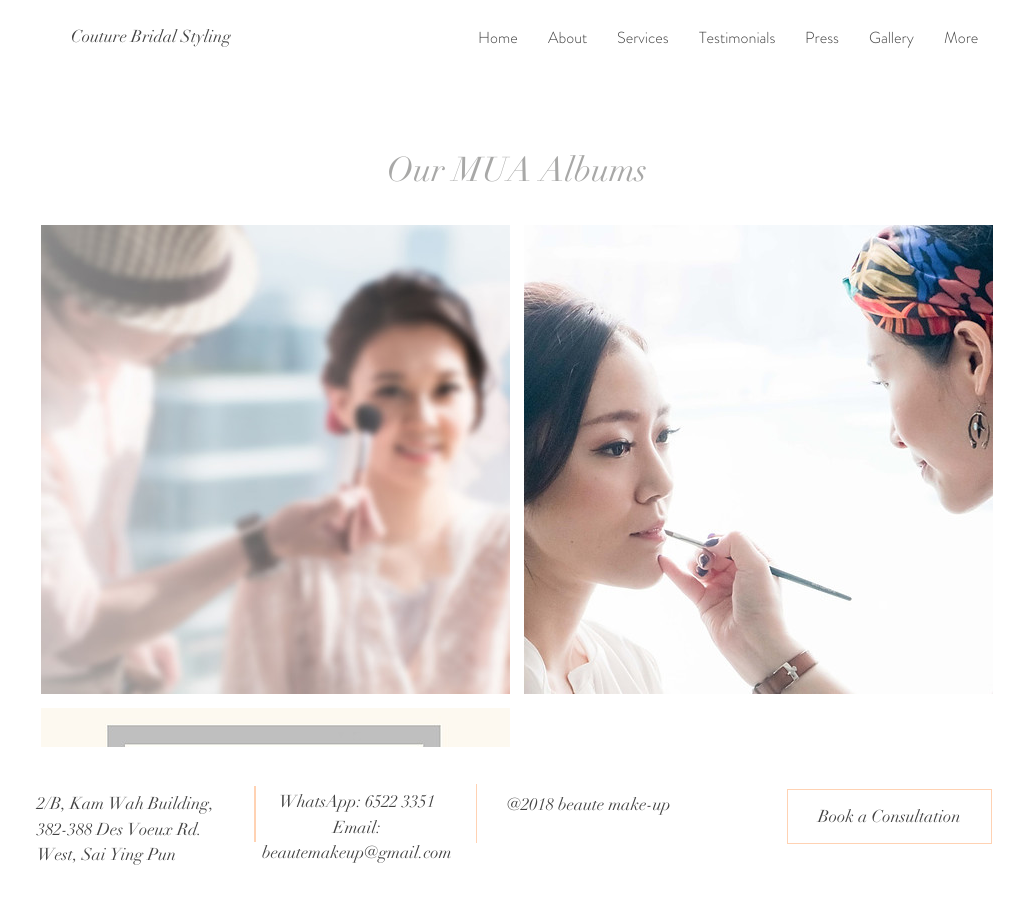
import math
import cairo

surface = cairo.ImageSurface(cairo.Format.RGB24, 1034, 911)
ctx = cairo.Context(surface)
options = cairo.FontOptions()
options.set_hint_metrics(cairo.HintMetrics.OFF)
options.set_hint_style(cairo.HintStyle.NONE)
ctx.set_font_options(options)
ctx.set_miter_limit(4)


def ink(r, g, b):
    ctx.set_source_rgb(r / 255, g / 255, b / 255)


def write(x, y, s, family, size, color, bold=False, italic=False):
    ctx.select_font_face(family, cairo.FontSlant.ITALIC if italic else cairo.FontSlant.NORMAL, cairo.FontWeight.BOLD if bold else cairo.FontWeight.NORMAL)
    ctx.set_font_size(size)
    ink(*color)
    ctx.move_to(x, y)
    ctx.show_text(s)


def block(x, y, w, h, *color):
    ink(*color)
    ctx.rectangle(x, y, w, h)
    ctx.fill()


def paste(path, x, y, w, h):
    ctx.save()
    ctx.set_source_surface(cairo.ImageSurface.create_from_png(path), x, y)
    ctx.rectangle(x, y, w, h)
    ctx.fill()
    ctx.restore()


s1 = dict(family="didot", size=17, color=(65, 65, 65))
s2 = dict(family="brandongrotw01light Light", size=16, color=(65, 65, 65))
s3 = dict(family="didot", size=34, color=(168, 168, 167))

ink(255, 255, 255)
ctx.paint()
write(71, 42, "Couture Bridal Styling", **s1)
write(478, 43, "Home", **s2)
write(548, 43, "About", **s2)
write(617, 43, "Services", **s2)
write(699, 43, "Testimonials", **s2)
write(805, 43, "Press", **s2)
write(869, 43, "Gallery", **s2)
write(944, 43, "More", **s2)
write(387, 181, "Our MUA Albums", **s3)
paste("pic1.png", 41, 225, 469, 469)
paste("pic2.png", 524, 225, 469, 469)
paste("pic3.png", 41, 708, 469, 39)
write(37, 809, "2/B, Kam Wah Building,", **s1)
write(37, 835, "382-388 Des Voeux Rd.", **s1)
write(37, 860, "West, Sai Ying Pun", **s1)
block(254, 786, 2, 56, 255, 210, 179)
write(279, 807, "WhatsApp: 6522 3351", **s1)
write(333, 833, "Email:", **s1)
write(262, 858, "beautemakeup@gmail.com", **s1)
block(476, 784, 1, 59, 255, 210, 179)
write(507, 810, "@2018 beaute make-up", **s1)
ctx.rectangle(787.5, 789.5, 204, 54)
ink(255, 210, 179)
ctx.set_line_width(1)
ctx.stroke()
write(818, 822, "Book a Consultation", **s1)
surface.write_to_png("screenshot.png")
